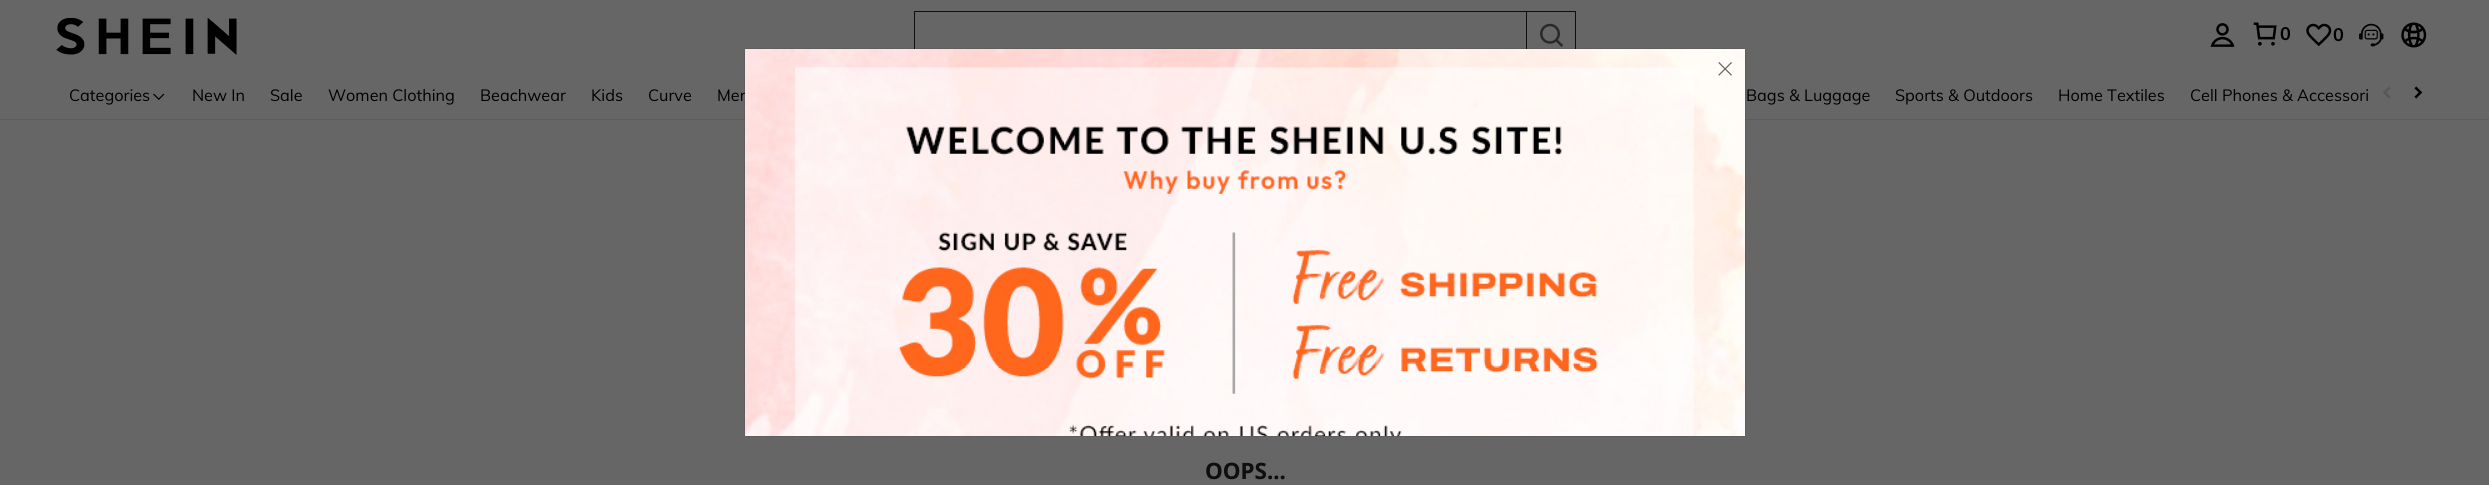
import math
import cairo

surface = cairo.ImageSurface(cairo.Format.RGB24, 2489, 485)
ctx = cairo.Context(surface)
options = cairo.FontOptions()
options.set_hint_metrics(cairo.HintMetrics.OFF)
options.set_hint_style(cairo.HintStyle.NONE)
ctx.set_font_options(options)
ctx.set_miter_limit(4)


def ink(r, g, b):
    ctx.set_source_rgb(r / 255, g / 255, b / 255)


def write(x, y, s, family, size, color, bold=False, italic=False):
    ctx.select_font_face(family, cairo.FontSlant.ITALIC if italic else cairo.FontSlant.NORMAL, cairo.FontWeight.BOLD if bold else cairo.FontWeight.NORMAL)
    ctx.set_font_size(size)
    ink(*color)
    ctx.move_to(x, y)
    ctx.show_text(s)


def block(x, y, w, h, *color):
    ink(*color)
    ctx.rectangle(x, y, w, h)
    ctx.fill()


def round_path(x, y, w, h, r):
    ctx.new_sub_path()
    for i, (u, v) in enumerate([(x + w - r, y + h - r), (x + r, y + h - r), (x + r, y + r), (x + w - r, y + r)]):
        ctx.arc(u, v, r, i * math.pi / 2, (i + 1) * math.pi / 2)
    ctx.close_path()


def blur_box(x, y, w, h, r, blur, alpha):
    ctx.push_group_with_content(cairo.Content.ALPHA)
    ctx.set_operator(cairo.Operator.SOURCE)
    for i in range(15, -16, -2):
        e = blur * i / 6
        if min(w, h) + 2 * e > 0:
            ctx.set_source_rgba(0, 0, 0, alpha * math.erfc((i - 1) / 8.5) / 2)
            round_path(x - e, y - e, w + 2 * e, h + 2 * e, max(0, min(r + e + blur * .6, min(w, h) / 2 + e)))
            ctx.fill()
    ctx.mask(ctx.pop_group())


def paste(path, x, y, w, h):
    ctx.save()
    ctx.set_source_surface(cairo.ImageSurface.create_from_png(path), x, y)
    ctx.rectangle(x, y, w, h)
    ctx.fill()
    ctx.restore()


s1 = dict(family="Muli", size=18, color=(0, 0, 0), bold=True)
s2 = dict(family="Muli", size=16.25, color=(0, 0, 0))
s3 = dict(family="Noto Sans", size=22.5, color=(14, 14, 14), bold=True)

ink(102, 102, 102)
ctx.paint()
paste("pic1.png", 56, 18, 181, 37)
block(914, 11, 612, 1, 14, 14, 14)
block(914, 11, 1, 38, 14, 14, 14)
ctx.rectangle(1526.5, 11.5, 49, 47)
ctx.set_line_width(1)
ctx.stroke()
paste("pic2.png", 1540, 23, 24, 24)
paste("pic3.png", 2210, 23, 25, 24)
paste("pic4.png", 2253, 22, 24, 24)
write(2280, 40, "0", **s1)
paste("pic5.png", 2306, 23, 26, 24)
write(2333, 41, "0", **s1)
paste("pic6.png", 2359, 23, 25, 24)
paste("pic7.png", 2401, 22, 26, 26)
block(0, 119, 2489, 1, 92, 92, 92)
write(69, 101, "Categories", **s2)
paste("pic8.png", 153, 93, 12, 7)
write(192, 101, "New In", **s2)
write(270, 101, "Sale", **s2)
write(328, 101, "Women Clothing", **s2)
write(480, 101, "Beachwear", **s2)
write(591, 101, "Kids", **s2)
write(648, 101, "Curve", **s2)
write(717, 101, "Men", **s2)
write(1746, 101, "Bags & Luggage", **s2)
write(1895, 101, "Sports & Outdoors", **s2)
write(2058, 101, "Home Textiles", **s2)
write(2190, 101, "Cell Phones & Accessori", **s2)
paste("pic9.png", 2383, 86, 8, 13)
paste("pic10.png", 2414, 86, 9, 13)
write(1205, 479, "OOPS...", **s3)
ink(0, 0, 0)
blur_box(745, 49, 1000, 387, 0, 0.5, 0.3)
paste("pic11.png", 745, 49, 1000, 387)
paste("pic12.png", 1718, 62, 14, 14)
surface.write_to_png("screenshot.png")
